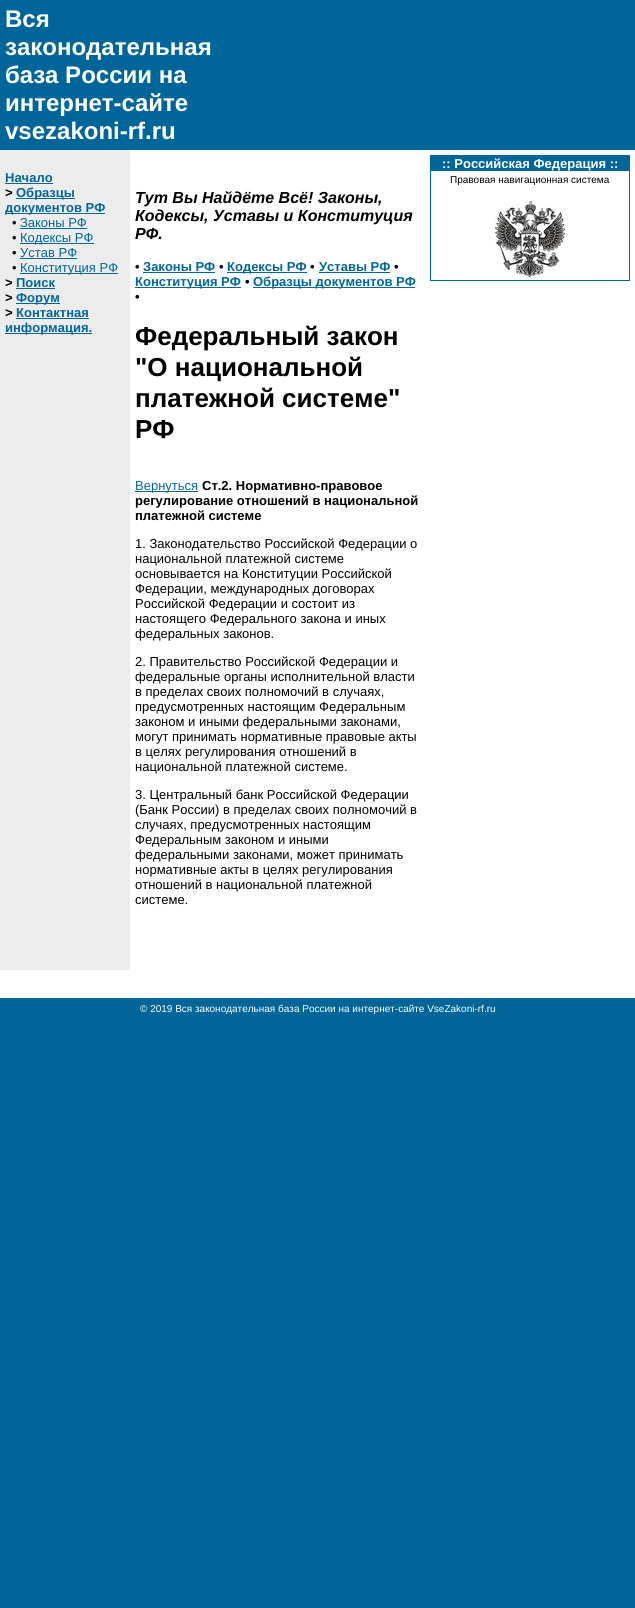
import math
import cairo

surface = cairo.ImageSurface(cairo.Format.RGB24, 635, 1608)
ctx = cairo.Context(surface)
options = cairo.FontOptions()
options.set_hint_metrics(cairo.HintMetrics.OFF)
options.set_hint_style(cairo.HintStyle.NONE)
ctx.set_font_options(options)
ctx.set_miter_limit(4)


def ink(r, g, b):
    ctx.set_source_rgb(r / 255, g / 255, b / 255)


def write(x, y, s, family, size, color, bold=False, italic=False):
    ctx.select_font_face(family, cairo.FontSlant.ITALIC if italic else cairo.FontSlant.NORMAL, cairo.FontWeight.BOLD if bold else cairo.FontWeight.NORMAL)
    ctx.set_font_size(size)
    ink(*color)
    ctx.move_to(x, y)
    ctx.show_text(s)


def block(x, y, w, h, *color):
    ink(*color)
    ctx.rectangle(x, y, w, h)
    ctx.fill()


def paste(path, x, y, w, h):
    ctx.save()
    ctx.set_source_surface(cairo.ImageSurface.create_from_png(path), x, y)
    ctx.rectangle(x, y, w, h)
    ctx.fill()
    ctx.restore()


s1 = dict(family="Liberation Sans", size=24, color=(255, 255, 255), bold=True)
s2 = dict(family="Liberation Sans", size=13, color=(0, 102, 153), bold=True)
s3 = dict(family="Liberation Sans", size=13, color=(0, 0, 0), bold=True)
s4 = dict(family="Liberation Sans", size=13, color=(0, 0, 0))
s5 = dict(family="Liberation Sans", size=13, color=(0, 102, 153))
s6 = dict(family="Liberation Sans", size=16, color=(0, 0, 0), bold=True, italic=True)
s7 = dict(family="Liberation Sans", size=26, color=(0, 0, 0), bold=True)
s8 = dict(family="Liberation Sans", size=13, color=(255, 255, 255), bold=True)
s9 = dict(family="Liberation Sans", size=10, color=(0, 0, 0))
s10 = dict(family="Liberation Sans", size=10, color=(255, 255, 255))

ink(0, 102, 153)
ctx.paint()
write(5, 27, "Вся", **s1)
write(5, 55, "законодательная", **s1)
write(5, 83, "база России на", **s1)
write(5, 111, "интернет-сайте", **s1)
write(5, 139, "vsezakoni-rf.ru", **s1)
block(0, 150, 130, 820, 236, 236, 236)
write(5, 182, "Начало", **s2)
block(5, 183, 48, 1, 0, 102, 153)
write(5, 197, ">", **s3)
block(16, 198, 59, 1, 0, 102, 153)
write(16, 197, "Образцы", **s2)
block(5, 213, 100, 1, 0, 102, 153)
write(5, 212, "документов РФ", **s2)
write(12, 227, "•", **s4)
write(20, 227, "Законы РФ", **s5)
block(20, 228, 67, 1, 0, 102, 153)
write(12, 242, "•", **s4)
block(20, 243, 74, 1, 0, 102, 153)
write(20, 242, "Кодексы РФ", **s5)
write(12, 257, "•", **s4)
write(20, 257, "Устав РФ", **s5)
block(20, 258, 57, 1, 0, 102, 153)
write(12, 272, "•", **s4)
block(20, 273, 98, 1, 0, 102, 153)
write(20, 272, "Конституция РФ", **s5)
write(5, 287, ">", **s3)
write(16, 287, "Поиск", **s2)
block(16, 288, 39, 1, 0, 102, 153)
write(5, 302, ">", **s3)
block(16, 303, 44, 1, 0, 102, 153)
write(16, 302, "Форум", **s2)
write(5, 317, ">", **s3)
write(16, 317, "Контактная", **s2)
block(16, 318, 73, 1, 0, 102, 153)
block(5, 333, 87, 1, 0, 102, 153)
write(5, 332, "информация.", **s2)
block(130, 150, 505, 820, 255, 255, 255)
write(135, 203, "Тут Вы Найдёте Всё! Законы,", **s6)
write(135, 221, "Кодексы, Уставы и Конституция", **s6)
write(135, 239, "РФ.", **s6)
write(135, 271, "•", **s3)
write(143, 271, "Законы РФ", **s2)
block(143, 272, 72, 1, 0, 102, 153)
write(219, 271, "•", **s3)
block(227, 272, 80, 1, 0, 102, 153)
write(227, 271, "Кодексы РФ", **s2)
write(310, 271, "•", **s3)
write(319, 271, "Уставы РФ", **s2)
block(319, 272, 71, 1, 0, 102, 153)
write(394, 271, "•", **s3)
block(135, 287, 106, 1, 0, 102, 153)
write(135, 286, "Конституция РФ", **s2)
write(245, 286, "•", **s3)
block(253, 287, 162, 1, 0, 102, 153)
write(253, 286, "Образцы документов РФ", **s2)
write(135, 301, "•", **s3)
write(135, 345, "Федеральный закон", **s7)
write(135, 376, "\"О национальной", **s7)
write(135, 407, "платежной системе\"", **s7)
write(135, 438, "РФ", **s7)
block(135, 491, 63, 1, 0, 102, 153)
write(135, 490, "Вернуться", **s5)
write(202, 490, "Ст.2. Нормативно-правовое", **s3)
write(135, 505, "регулирование отношений в национальной", **s3)
write(135, 520, "платежной системе", **s3)
write(135, 548, "1. Законодательство Российской Федерации о", **s4)
write(135, 563, "национальной платежной системе", **s4)
write(135, 578, "основывается на Конституции Российской", **s4)
write(135, 593, "Федерации, международных договорах", **s4)
write(135, 608, "Российской Федерации и состоит из", **s4)
write(135, 623, "настоящего Федерального закона и иных", **s4)
write(135, 638, "федеральных законов.", **s4)
write(135, 666, "2. Правительство Российской Федерации и", **s4)
write(135, 681, "федеральные органы исполнительной власти", **s4)
write(135, 696, "в пределах своих полномочий в случаях,", **s4)
write(135, 711, "предусмотренных настоящим Федеральным", **s4)
write(135, 726, "законом и иными федеральными законами,", **s4)
write(135, 741, "могут принимать нормативные правовые акты", **s4)
write(135, 756, "в целях регулирования отношений в", **s4)
write(135, 771, "национальной платежной системе.", **s4)
write(135, 799, "3. Центральный банк Российской Федерации", **s4)
write(135, 814, "(Банк России) в пределах своих полномочий в", **s4)
write(135, 829, "случаях, предусмотренных настоящим", **s4)
write(135, 844, "Федеральным законом и иными", **s4)
write(135, 859, "федеральными законами, может принимать", **s4)
write(135, 874, "нормативные акты в целях регулирования", **s4)
write(135, 889, "отношений в национальной платежной", **s4)
write(135, 904, "системе.", **s4)
block(430, 155, 200, 126, 0, 102, 153)
write(442, 168, ":: Российская Федерация ::", **s8)
block(431, 171, 198, 109, 255, 255, 255)
write(450, 183, "Правовая навигационная система", **s9)
paste("pic1.png", 495, 201, 70, 76)
block(0, 970, 635, 28, 255, 255, 255)
write(140, 1012, "© 2019 Вся законодательная база России на интернет-сайте VseZakoni-rf.ru", **s10)
surface.write_to_png("screenshot.png")
